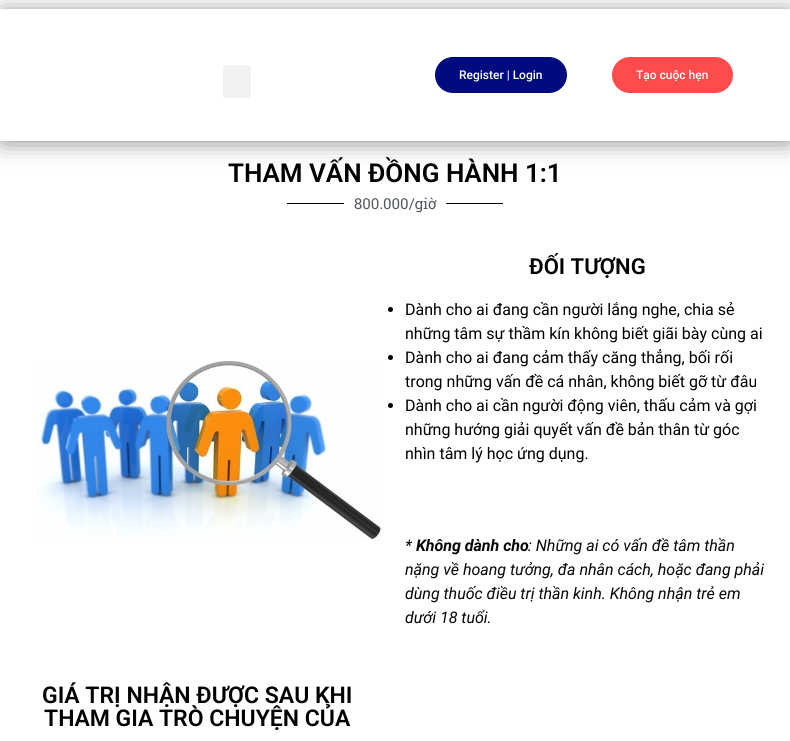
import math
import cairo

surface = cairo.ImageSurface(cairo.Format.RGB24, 790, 741)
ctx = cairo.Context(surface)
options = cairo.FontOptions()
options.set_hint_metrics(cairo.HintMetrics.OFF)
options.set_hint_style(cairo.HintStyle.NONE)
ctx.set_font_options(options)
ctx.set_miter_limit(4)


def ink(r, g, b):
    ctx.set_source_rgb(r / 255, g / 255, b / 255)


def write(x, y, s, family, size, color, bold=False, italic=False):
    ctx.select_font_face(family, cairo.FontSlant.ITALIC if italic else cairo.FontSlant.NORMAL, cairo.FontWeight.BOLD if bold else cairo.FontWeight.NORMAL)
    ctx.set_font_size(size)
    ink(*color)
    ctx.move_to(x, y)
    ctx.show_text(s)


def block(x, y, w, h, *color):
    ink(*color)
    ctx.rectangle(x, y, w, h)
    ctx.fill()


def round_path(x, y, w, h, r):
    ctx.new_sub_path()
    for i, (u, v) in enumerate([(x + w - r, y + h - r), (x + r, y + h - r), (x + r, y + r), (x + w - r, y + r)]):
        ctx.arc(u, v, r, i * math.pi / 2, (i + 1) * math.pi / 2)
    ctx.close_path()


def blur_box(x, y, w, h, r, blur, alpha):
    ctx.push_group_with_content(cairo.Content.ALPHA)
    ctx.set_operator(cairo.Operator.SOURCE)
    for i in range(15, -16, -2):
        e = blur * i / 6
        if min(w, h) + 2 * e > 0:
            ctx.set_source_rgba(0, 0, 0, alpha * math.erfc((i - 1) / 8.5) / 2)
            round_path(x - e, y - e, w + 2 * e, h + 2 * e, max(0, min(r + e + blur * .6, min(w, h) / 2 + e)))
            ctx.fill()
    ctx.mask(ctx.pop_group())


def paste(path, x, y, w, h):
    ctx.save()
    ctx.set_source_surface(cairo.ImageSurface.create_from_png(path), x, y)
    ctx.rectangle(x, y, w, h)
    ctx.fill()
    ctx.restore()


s1 = dict(family="Roboto Medium", size=12, color=(255, 255, 255))
s2 = dict(family="Roboto SemiBold", size=26, color=(0, 0, 0))
s3 = dict(family="Roboto Slab", size=15, color=(84, 89, 95))
s4 = dict(family="Roboto SemiBold", size=22, color=(0, 0, 0))
s5 = dict(family="Roboto", size=16, color=(0, 0, 0))
s6 = dict(family="Roboto", size=16, color=(6, 6, 6), italic=True)
s7 = dict(family="Roboto", size=16, color=(6, 6, 6), bold=True, italic=True)
s8 = dict(family="Roboto SemiBold", size=23, color=(0, 0, 0))

ink(255, 255, 255)
ctx.paint()
ctx.save()
ctx.set_fill_rule(cairo.FillRule.EVEN_ODD)
ctx.new_path()
ctx.move_to(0, 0)
ctx.line_to(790, 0)
ctx.line_to(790, 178)
ctx.line_to(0, 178)
ctx.close_path()
ctx.move_to(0, 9)
ctx.line_to(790, 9)
ctx.line_to(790, 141)
ctx.line_to(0, 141)
ctx.close_path()
ctx.clip()
ink(0, 0, 0)
blur_box(3, 13, 786, 128, 0, 12, 0.5)
ctx.restore()
ink(242, 242, 242)
round_path(223, 65, 28, 33, 3)
ctx.fill()
ink(0, 11, 125)
round_path(435, 57, 132, 36, 18)
ctx.fill()
write(459, 79, "Register | Login", **s1)
ink(255, 75, 75)
round_path(612, 57, 121, 36, 18)
ctx.fill()
write(636, 79, "Tạo cuộc hẹn", **s1)
write(228, 182, "THAM VẤN ĐỒNG HÀNH 1:1", **s2)
block(287, 203, 57, 1, 0, 0, 0)
write(354, 209, "800.000/giờ", **s3)
block(446, 203, 57, 1, 0, 0, 0)
paste("pic1.png", 35, 361, 346, 180)
write(529, 274, "ĐỐI TƯỢNG", **s4)
ctx.new_path()
ctx.arc(390.5, 309.5, 2.5, 0, 2 * math.pi)
ctx.fill()
write(405, 315, "Dành cho ai đang cần người lắng nghe, chia sẻ", **s5)
write(405, 339, "những tâm sự thầm kín không biết giãi bày cùng ai", **s5)
ctx.new_path()
ctx.arc(390.5, 357.5, 2.5, 0, 2 * math.pi)
ctx.fill()
write(405, 363, "Dành cho ai đang cảm thấy căng thẳng, bối rối", **s5)
write(405, 387, "trong những vấn đề cá nhân, không biết gỡ từ đâu", **s5)
ctx.new_path()
ctx.arc(390.5, 405.5, 2.5, 0, 2 * math.pi)
ctx.fill()
write(405, 411, "Dành cho ai cần người động viên, thấu cảm và gợi", **s5)
write(405, 435, "những hướng giải quyết vấn đề bản thân từ góc", **s5)
write(405, 459, "nhìn tâm lý học ứng dụng.", **s5)
write(405, 551, "*", **s6)
write(416, 551, "Không dành cho", **s7)
write(528, 551, ": Những ai có vấn đề tâm thần", **s6)
write(405, 575, "nặng về hoang tưởng, đa nhân cách, hoặc đang phải", **s6)
write(405, 599, "dùng thuốc điều trị thần kinh. Không nhận trẻ em", **s6)
write(405, 623, "dưới 18 tuổi.", **s6)
write(42, 703, "GIÁ TRỊ NHẬN ĐƯỢC SAU KHI", **s8)
write(44, 726, "THAM GIA TRÒ CHUYỆN CỦA", **s8)
surface.write_to_png("screenshot.png")
